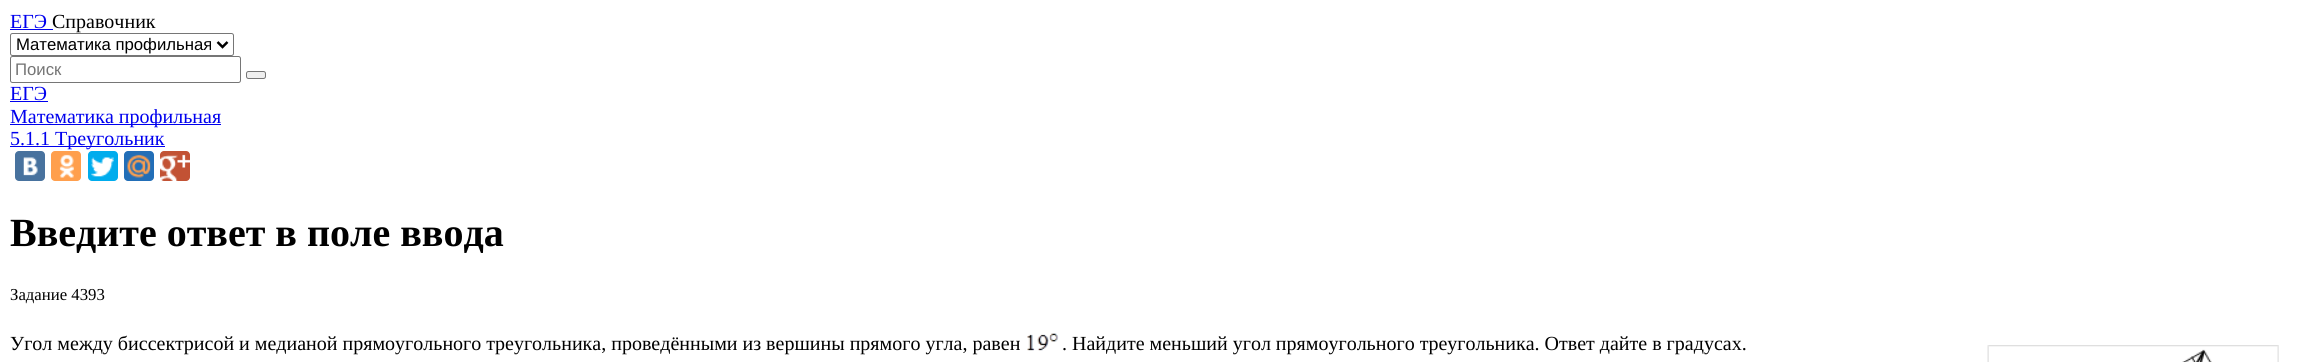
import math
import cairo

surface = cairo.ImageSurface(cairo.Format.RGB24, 2310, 362)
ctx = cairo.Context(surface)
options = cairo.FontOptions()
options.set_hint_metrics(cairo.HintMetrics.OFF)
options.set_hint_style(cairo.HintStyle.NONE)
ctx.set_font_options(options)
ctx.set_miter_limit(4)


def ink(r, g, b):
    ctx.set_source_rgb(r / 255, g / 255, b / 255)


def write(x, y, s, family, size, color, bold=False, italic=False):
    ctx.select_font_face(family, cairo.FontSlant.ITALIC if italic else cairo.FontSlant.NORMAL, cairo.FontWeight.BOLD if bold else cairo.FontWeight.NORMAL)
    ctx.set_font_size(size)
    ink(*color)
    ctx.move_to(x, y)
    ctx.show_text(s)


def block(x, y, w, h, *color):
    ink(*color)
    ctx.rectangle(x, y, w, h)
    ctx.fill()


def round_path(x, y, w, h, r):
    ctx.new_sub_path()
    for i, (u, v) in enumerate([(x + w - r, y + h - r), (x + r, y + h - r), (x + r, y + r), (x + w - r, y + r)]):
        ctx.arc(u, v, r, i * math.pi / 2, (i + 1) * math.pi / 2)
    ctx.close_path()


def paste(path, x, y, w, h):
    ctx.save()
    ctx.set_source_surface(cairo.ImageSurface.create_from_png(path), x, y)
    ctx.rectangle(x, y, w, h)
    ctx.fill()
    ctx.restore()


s1 = dict(family="Liberation Serif", size=20, color=(0, 0, 238))
s2 = dict(family="Liberation Serif", size=20, color=(0, 0, 0))
s3 = dict(family="Liberation Sans", size=16.75, color=(0, 0, 0))
s4 = dict(family="Liberation Sans", size=16.75, color=(117, 117, 117))
s5 = dict(family="Liberation Serif", size=40, color=(0, 0, 0), bold=True)
s6 = dict(family="Liberation Serif", size=16.75, color=(0, 0, 0))

ink(255, 255, 255)
ctx.paint()
write(10, 28, "ЕГЭ", **s1)
block(10, 29, 43, 1, 0, 0, 238)
write(52, 28, "Справочник", **s2)
round_path(10.5, 33.5, 223, 22, 2)
ink(118, 118, 118)
ctx.set_line_width(1)
ctx.stroke()
ctx.new_path()
ctx.move_to(217.5, 42)
ctx.line_to(222.5, 47)
ctx.line_to(227.5, 42)
ink(0, 0, 0)
ctx.set_line_width(2.5)
ctx.stroke()
write(16, 50, "Математика профильная", **s3)
round_path(10.5, 56.5, 230, 26, 2)
ink(118, 118, 118)
ctx.set_line_width(1)
ctx.stroke()
write(15, 75, "Поиск", **s4)
ink(239, 239, 239)
round_path(246.5, 71.5, 19, 7, 2)
ctx.fill_preserve()
ink(118, 118, 118)
ctx.stroke()
write(10, 100, "ЕГЭ", **s1)
block(10, 101, 38, 1, 0, 0, 238)
block(10, 124, 211, 1, 0, 0, 238)
write(10, 123, "Математика профильная", **s1)
block(10, 146, 155, 1, 0, 0, 238)
write(10, 145, "5.1.1 Треугольник", **s1)
ink(72, 114, 158)
round_path(15, 151, 30, 30, 4)
ctx.fill()
paste("pic1.png", 23, 157, 15, 19)
ink(255, 159, 77)
round_path(51, 151, 30, 30, 4)
ctx.fill()
paste("pic2.png", 59, 154, 15, 24)
ink(0, 172, 237)
round_path(88, 151, 30, 30, 4)
ctx.fill()
paste("pic3.png", 91, 157, 23, 20)
ink(34, 110, 183)
round_path(124, 151, 30, 30, 4)
ctx.fill()
paste("pic4.png", 127, 154, 24, 24)
ink(194, 82, 52)
round_path(160, 151, 30, 30, 4)
ctx.fill()
paste("pic5.png", 160, 154, 30, 27)
write(10, 246, "Введите ответ в поле ввода", **s5)
write(10, 300, "Задание 4393", **s6)
write(10, 350, "Угол между биссектрисой и медианой прямоугольного треугольника, проведёнными из вершины прямого угла, равен", **s2)
paste("pic6.png", 1027, 333, 32, 18)
write(1062, 350, ". Найдите меньший угол прямоугольного треугольника. Ответ дайте в градусах.", **s2)
paste("pic7.png", 1987, 345, 292, 17)
surface.write_to_png("screenshot.png")
